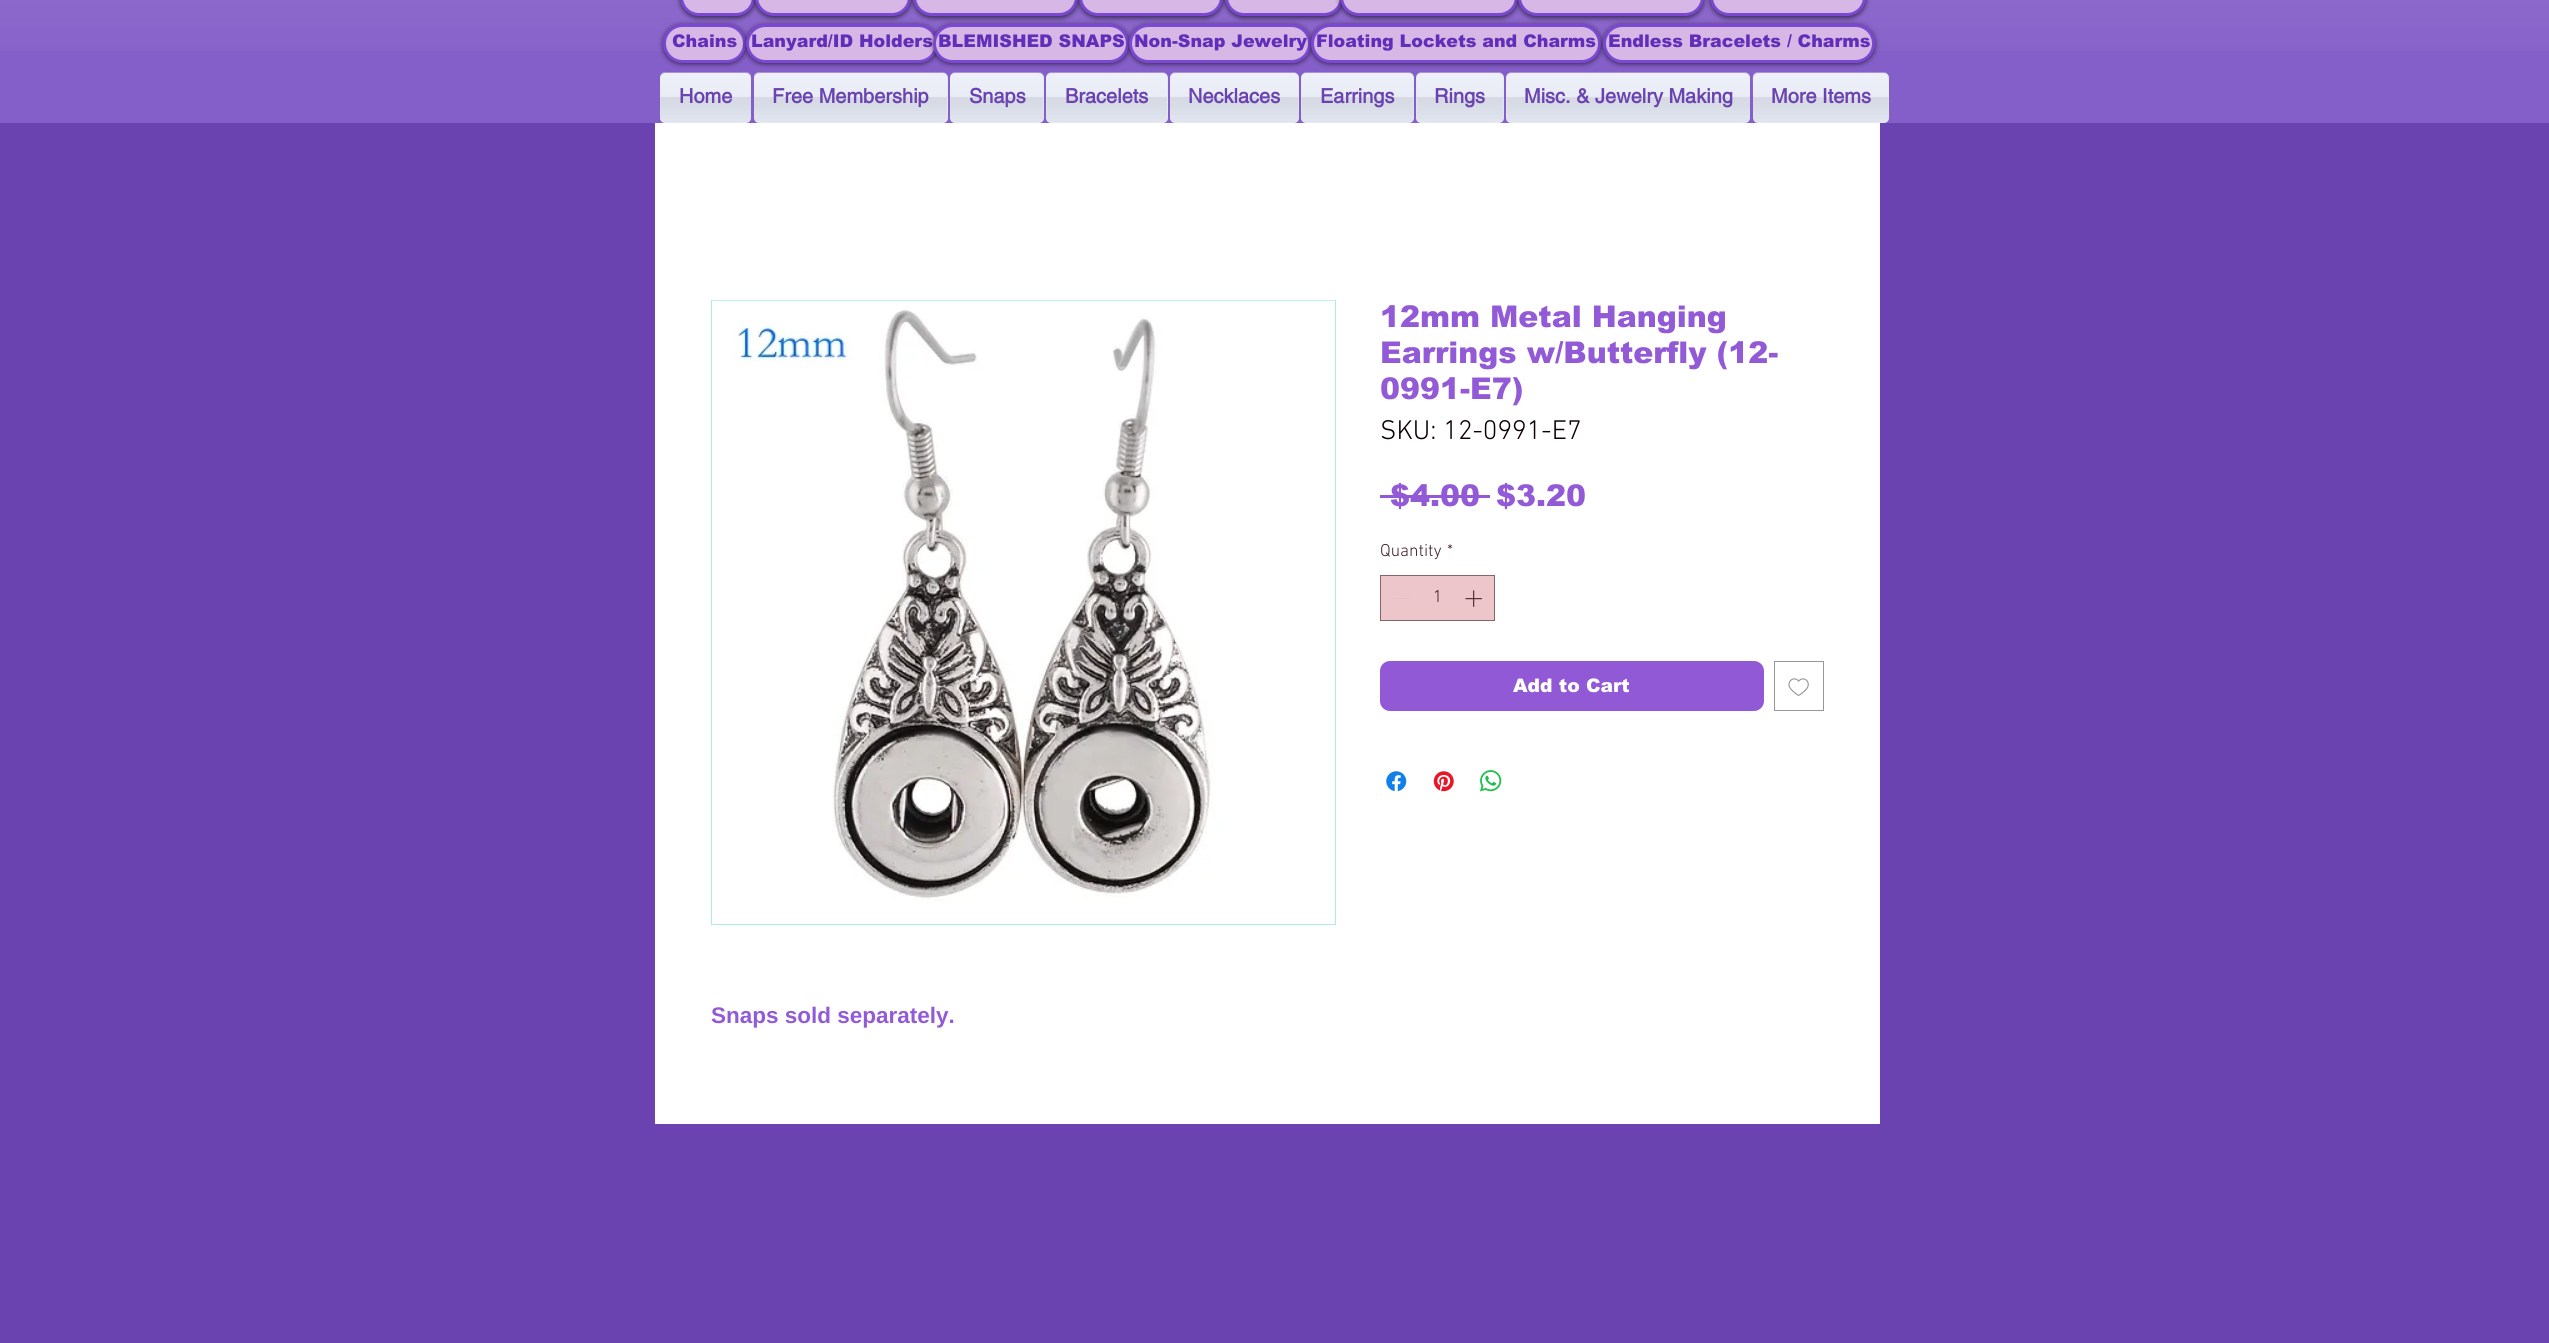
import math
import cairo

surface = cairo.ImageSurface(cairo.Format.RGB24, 2549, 1343)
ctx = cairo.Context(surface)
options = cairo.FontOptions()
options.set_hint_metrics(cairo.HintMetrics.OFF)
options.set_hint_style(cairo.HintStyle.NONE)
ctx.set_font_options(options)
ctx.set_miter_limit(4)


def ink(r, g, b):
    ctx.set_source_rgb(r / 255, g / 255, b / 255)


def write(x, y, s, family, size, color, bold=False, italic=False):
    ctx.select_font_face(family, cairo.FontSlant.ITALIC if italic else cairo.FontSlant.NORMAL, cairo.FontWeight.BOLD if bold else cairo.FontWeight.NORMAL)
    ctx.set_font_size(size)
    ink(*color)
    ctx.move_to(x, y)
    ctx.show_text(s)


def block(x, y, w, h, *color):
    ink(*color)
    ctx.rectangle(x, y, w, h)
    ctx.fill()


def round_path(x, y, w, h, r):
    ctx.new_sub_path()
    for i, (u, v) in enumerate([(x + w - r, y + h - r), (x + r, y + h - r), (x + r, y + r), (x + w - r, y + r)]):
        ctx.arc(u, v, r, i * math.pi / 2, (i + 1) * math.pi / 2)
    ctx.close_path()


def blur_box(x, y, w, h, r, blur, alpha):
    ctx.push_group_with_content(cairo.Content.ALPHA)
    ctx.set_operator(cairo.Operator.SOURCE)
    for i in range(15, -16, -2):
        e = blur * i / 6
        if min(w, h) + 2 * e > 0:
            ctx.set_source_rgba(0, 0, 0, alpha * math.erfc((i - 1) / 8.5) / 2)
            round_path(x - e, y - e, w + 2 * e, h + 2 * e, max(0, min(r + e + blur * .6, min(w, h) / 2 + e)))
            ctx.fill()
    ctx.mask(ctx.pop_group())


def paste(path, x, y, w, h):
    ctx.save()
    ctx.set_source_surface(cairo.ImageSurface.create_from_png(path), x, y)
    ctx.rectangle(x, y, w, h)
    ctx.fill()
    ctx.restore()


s1 = dict(family="arial Black", size=17.5, color=(96, 46, 184))
s2 = dict(family="helvetica", size=20, color=(106, 67, 177), bold=True)
s3 = dict(family="arial Black", size=30, color=(146, 90, 215))
s4 = dict(family="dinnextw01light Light", size=27.5, color=(14, 0, 2))
s5 = dict(family="dinnextw01light Light", size=17.5, color=(68, 34, 39))
s6 = dict(family="arial Black", size=18.75, color=(255, 255, 255))
s7 = dict(family="Liberation Sans", size=22.5, color=(146, 90, 215), bold=True)

ink(106, 67, 177)
ctx.paint()
block(0, 0, 2549, 123, 133, 95, 201)
paste("pic1.png", 0, 0, 2549, 51)
ink(0, 0, 0)
blur_box(680, -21, 75, 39, 19.5, 2.5, 0.6)
ink(215, 183, 230)
round_path(681.5, -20.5, 72, 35, 17.5)
ctx.fill_preserve()
ink(123, 73, 209)
ctx.set_line_width(3)
ctx.stroke()
ink(0, 0, 0)
blur_box(755, -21, 156, 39, 19.5, 2.5, 0.6)
ink(215, 183, 230)
round_path(756.5, -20.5, 153, 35, 17.5)
ctx.fill_preserve()
ink(123, 73, 209)
ctx.stroke()
ink(0, 0, 0)
blur_box(913, -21, 165, 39, 19.5, 2.5, 0.6)
ink(215, 183, 230)
round_path(914.5, -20.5, 162, 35, 17.5)
ctx.fill_preserve()
ink(123, 73, 209)
ctx.stroke()
ink(0, 0, 0)
blur_box(1079, -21, 144, 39, 19.5, 2.5, 0.6)
ink(215, 183, 230)
round_path(1080.5, -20.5, 141, 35, 17.5)
ctx.fill_preserve()
ink(123, 73, 209)
ctx.stroke()
ink(0, 0, 0)
blur_box(1225, -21, 118, 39, 19.5, 2.5, 0.6)
ink(215, 183, 230)
round_path(1226.5, -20.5, 115, 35, 17.5)
ctx.fill_preserve()
ink(123, 73, 209)
ctx.stroke()
ink(0, 0, 0)
blur_box(1340, -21, 178, 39, 19.5, 2.5, 0.6)
ink(215, 183, 230)
round_path(1341.5, -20.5, 175, 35, 17.5)
ctx.fill_preserve()
ink(123, 73, 209)
ctx.stroke()
ink(0, 0, 0)
blur_box(1518, -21, 186, 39, 19.5, 2.5, 0.6)
ink(215, 183, 230)
round_path(1519.5, -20.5, 183, 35, 17.5)
ctx.fill_preserve()
ink(123, 73, 209)
ctx.stroke()
ink(0, 0, 0)
blur_box(1710, -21, 156, 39, 19.5, 2.5, 0.6)
ink(215, 183, 230)
round_path(1711.5, -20.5, 153, 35, 17.5)
ctx.fill_preserve()
ink(123, 73, 209)
ctx.stroke()
ink(0, 0, 0)
blur_box(663, 25, 83, 39, 19.5, 2.5, 0.6)
ink(215, 183, 230)
round_path(664.5, 25.5, 80, 36, 18)
ctx.fill_preserve()
ink(123, 73, 209)
ctx.stroke()
write(672, 47, "Chains", **s1)
ink(0, 0, 0)
blur_box(746, 25, 192, 39, 19.5, 2.5, 0.6)
ink(215, 183, 230)
round_path(747.5, 25.5, 189, 36, 18)
ctx.fill_preserve()
ink(123, 73, 209)
ctx.stroke()
write(751, 47, "Lanyard/ID Holders", **s1)
ink(0, 0, 0)
blur_box(933, 25, 196, 39, 19.5, 2.5, 0.6)
ink(215, 183, 230)
round_path(934.5, 25.5, 193, 36, 18)
ctx.fill_preserve()
ink(123, 73, 209)
ctx.stroke()
write(938, 47, "BLEMISHED SNAPS", **s1)
ink(0, 0, 0)
blur_box(1129, 25, 182, 39, 19.5, 2.5, 0.6)
ink(215, 183, 230)
round_path(1130.5, 25.5, 179, 36, 18)
ctx.fill_preserve()
ink(123, 73, 209)
ctx.stroke()
write(1134, 47, "Non-Snap Jewelry", **s1)
ink(0, 0, 0)
blur_box(1311, 25, 290, 39, 19.5, 2.5, 0.6)
ink(215, 183, 230)
round_path(1312.5, 25.5, 287, 36, 18)
ctx.fill_preserve()
ink(123, 73, 209)
ctx.stroke()
write(1316, 47, "Floating Lockets and Charms", **s1)
ink(0, 0, 0)
blur_box(1603, 25, 272, 39, 19.5, 2.5, 0.6)
ink(215, 183, 230)
round_path(1604.5, 25.5, 269, 36, 18)
ctx.fill_preserve()
ink(123, 73, 209)
ctx.stroke()
write(1608, 47, "Endless Bracelets / Charms", **s1)
ink(230, 234, 245)
round_path(660, 73, 91, 50, 5)
ctx.fill()
paste("pic2.png", 660, 72, 91, 50)
write(679, 103, "Home", **s2)
ink(230, 234, 245)
round_path(754, 73, 194, 50, 5)
ctx.fill()
paste("pic3.png", 754, 72, 193, 50)
write(772, 103, "Free Membership", **s2)
ink(230, 234, 245)
round_path(950, 73, 94, 50, 5)
ctx.fill()
paste("pic4.png", 950, 72, 94, 50)
write(969, 103, "Snaps", **s2)
ink(230, 234, 245)
round_path(1046, 73, 122, 50, 5)
ctx.fill()
paste("pic5.png", 1046, 72, 121, 50)
write(1065, 103, "Bracelets", **s2)
ink(230, 234, 245)
round_path(1170, 73, 129, 50, 5)
ctx.fill()
paste("pic6.png", 1170, 72, 129, 50)
write(1188, 103, "Necklaces", **s2)
ink(230, 234, 245)
round_path(1301, 73, 113, 50, 5)
ctx.fill()
paste("pic7.png", 1301, 72, 113, 50)
write(1320, 103, "Earrings", **s2)
ink(230, 234, 245)
round_path(1416, 73, 88, 50, 5)
ctx.fill()
paste("pic8.png", 1416, 72, 88, 50)
write(1434, 103, "Rings", **s2)
ink(230, 234, 245)
round_path(1506, 73, 244, 50, 5)
ctx.fill()
paste("pic9.png", 1506, 72, 244, 50)
write(1524, 103, "Misc. & Jewelry Making", **s2)
ink(230, 234, 245)
round_path(1753, 73, 136, 50, 5)
ctx.fill()
paste("pic10.png", 1752, 72, 137, 50)
write(1771, 103, "More Items", **s2)
block(655, 123, 1225, 1001, 255, 255, 255)
write(1380, 327, "12mm Metal Hanging", **s3)
write(1380, 363, "Earrings w/Butterfly (12-", **s3)
write(1380, 399, "0991-E7)", **s3)
write(1380, 439, "SKU: 12-0991-E7", **s4)
write(1390, 506, "$4.00", **s3)
block(1380, 495, 110, 3, 146, 89, 215)
write(1496, 506, "$3.20", **s3)
write(1380, 556, "Quantity", **s5)
write(1447, 556, "*", **s5)
ink(237, 198, 204)
ctx.rectangle(1380.5, 575.5, 114, 45)
ctx.fill_preserve()
ink(136, 100, 105)
ctx.set_line_width(1)
ctx.stroke()
block(1394, 598, 17, 1, 218, 199, 202)
write(1433, 602, "1", **s5)
paste("pic11.png", 1465, 590, 17, 17)
ink(146, 89, 215)
round_path(1380, 661, 384, 50, 10)
ctx.fill()
write(1513, 692, "Add to Cart", **s6)
ctx.rectangle(1774.5, 661.5, 49, 49)
ink(151, 151, 151)
ctx.stroke()
paste("pic12.png", 1788, 678, 21, 18)
paste("pic13.png", 1386, 771, 21, 21)
paste("pic14.png", 1433, 771, 21, 21)
paste("pic15.png", 1480, 770, 22, 22)
ctx.rectangle(711.5, 300.5, 624, 624)
ink(171, 237, 228)
ctx.stroke()
paste("pic16.png", 712, 300, 623, 601)
write(711, 1023, "Snaps sold separately.", **s7)
surface.write_to_png("screenshot.png")
